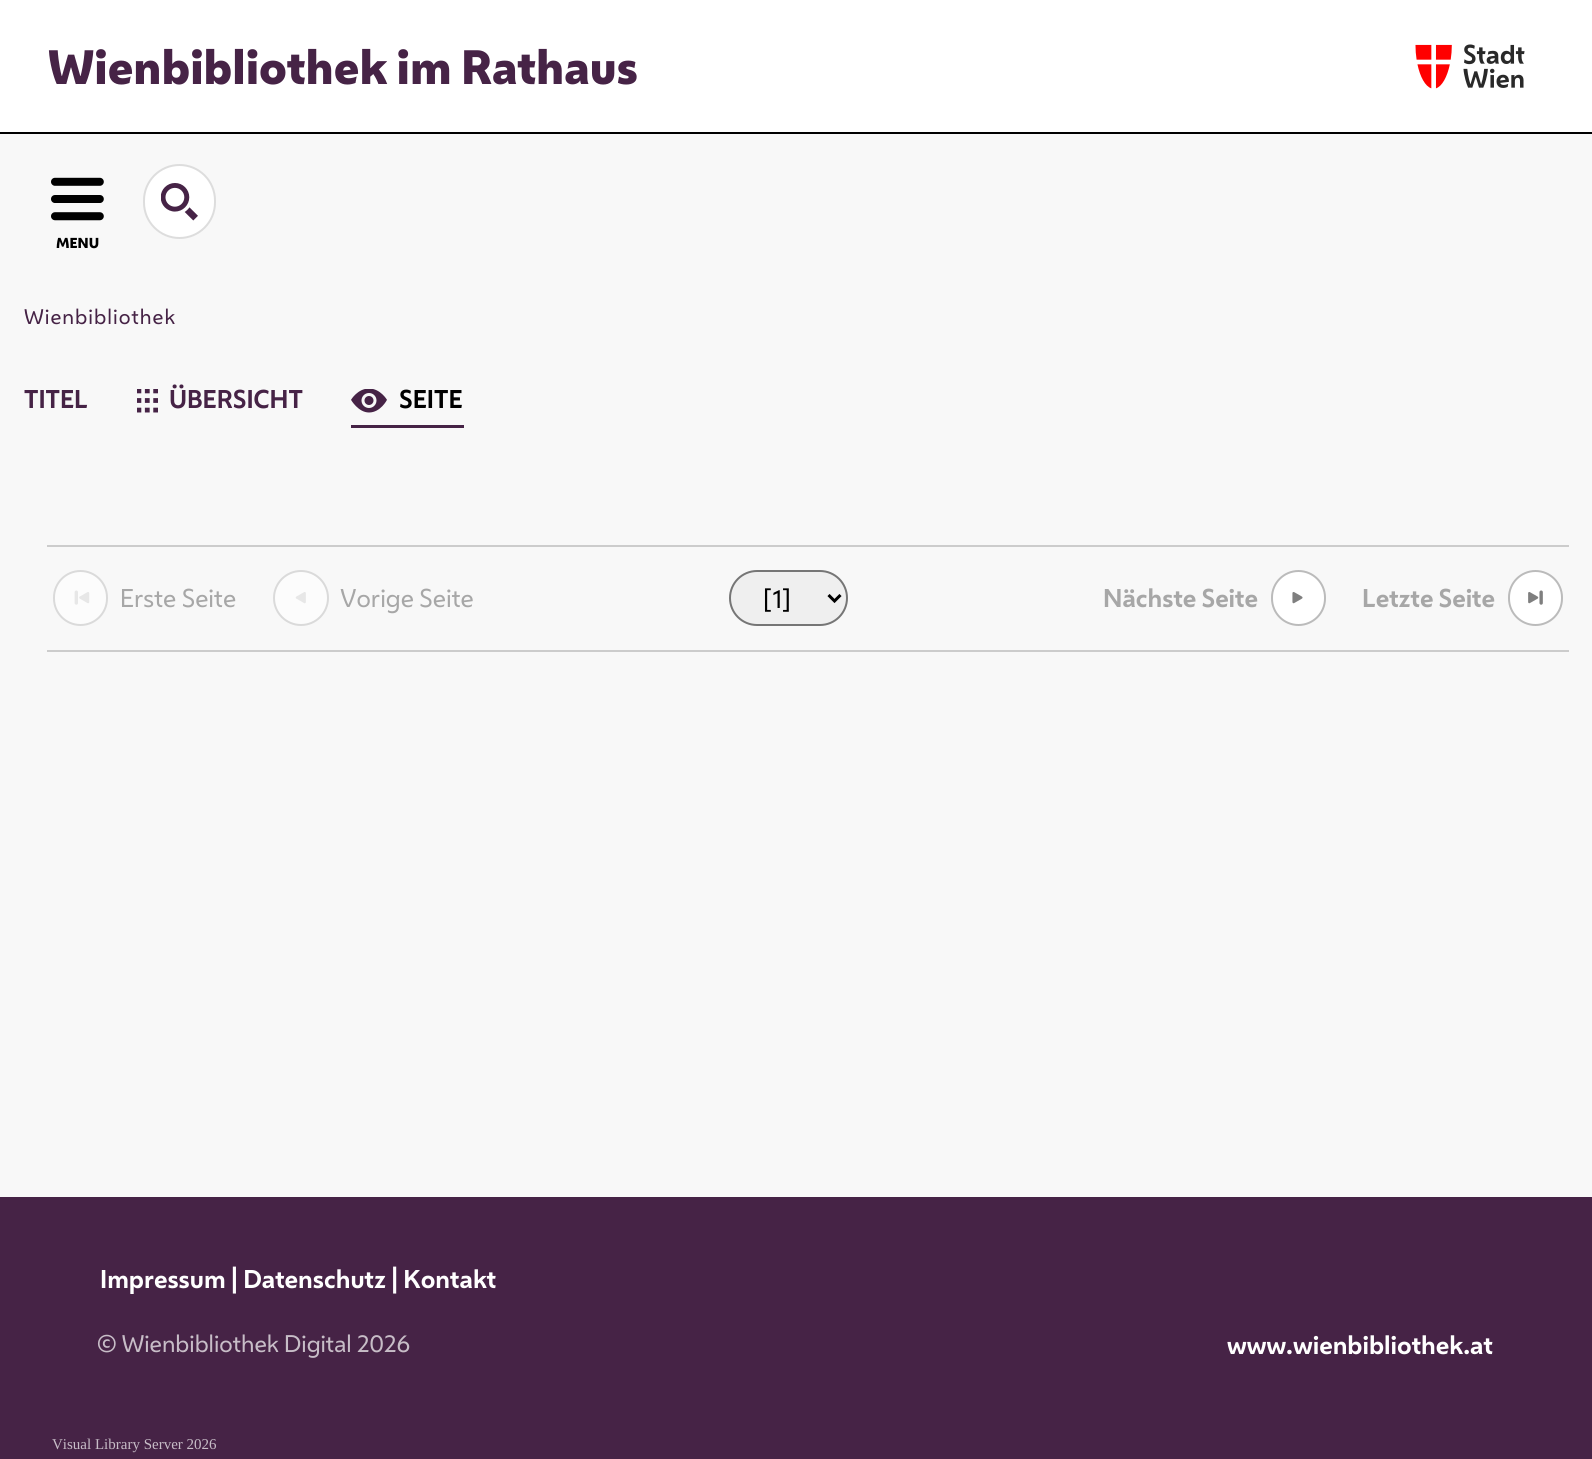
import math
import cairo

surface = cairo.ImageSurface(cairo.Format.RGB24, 1592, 1459)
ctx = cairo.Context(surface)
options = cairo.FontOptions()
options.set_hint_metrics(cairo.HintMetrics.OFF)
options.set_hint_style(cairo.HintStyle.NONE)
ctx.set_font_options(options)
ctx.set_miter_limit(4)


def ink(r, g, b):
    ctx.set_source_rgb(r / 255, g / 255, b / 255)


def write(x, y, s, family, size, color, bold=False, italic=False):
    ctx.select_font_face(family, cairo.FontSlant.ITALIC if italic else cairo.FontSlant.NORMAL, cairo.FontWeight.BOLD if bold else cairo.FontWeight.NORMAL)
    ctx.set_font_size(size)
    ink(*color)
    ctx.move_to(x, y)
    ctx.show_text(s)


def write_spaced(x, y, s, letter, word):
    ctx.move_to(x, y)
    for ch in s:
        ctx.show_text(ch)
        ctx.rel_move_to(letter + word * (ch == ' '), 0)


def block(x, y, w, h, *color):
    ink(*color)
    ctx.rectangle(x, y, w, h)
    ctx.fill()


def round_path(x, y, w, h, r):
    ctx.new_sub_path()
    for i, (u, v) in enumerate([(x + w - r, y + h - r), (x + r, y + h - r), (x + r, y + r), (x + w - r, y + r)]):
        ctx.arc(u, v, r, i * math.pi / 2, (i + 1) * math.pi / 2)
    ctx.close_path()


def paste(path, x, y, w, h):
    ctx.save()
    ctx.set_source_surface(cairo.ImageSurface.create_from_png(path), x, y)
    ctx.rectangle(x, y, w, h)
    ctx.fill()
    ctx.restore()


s1 = dict(family="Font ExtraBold", size=45, color=(70, 35, 70))
s2 = dict(family="Font ExtraBold", size=13.5, color=(0, 0, 0))
s3 = dict(family="Font", size=24, color=(70, 35, 70), bold=True)
s4 = dict(family="Font", size=24, color=(0, 0, 0), bold=True)
s5 = dict(family="Font", size=24, color=(167, 167, 167))
s6 = dict(family="Font", size=24, color=(0, 0, 0))
s7 = dict(family="Font", size=24, color=(167, 167, 167), bold=True)
s8 = dict(family="Font", size=24, color=(255, 255, 255), bold=True)
s9 = dict(family="Font", size=22.5, color=(199, 189, 199))
s10 = dict(family="Liberation Serif", size=15, color=(199, 189, 199))

ink(248, 248, 248)
ctx.paint()
block(0, 0, 1592, 132, 255, 255, 255)
block(0, 132, 1592, 2, 0, 0, 0)
write(48, 84, "Wienbibliothek im Rathaus", **s1)
paste("pic1.png", 1415, 44, 110, 45)
ink(255, 255, 255)
round_path(144, 165, 71, 73, 35.5)
ctx.fill_preserve()
ink(221, 221, 221)
ctx.stroke()
paste("pic2.png", 161, 183, 37, 38)
paste("pic3.png", 51, 177, 53, 44)
write(56, 248, "MENU", **s2)
ctx.select_font_face("Font")
ctx.set_font_size(19.75)
ink(70, 35, 70)
write_spaced(24, 324, "Wienbibliothek", 1, 0)
write(24, 408, "TITEL", **s3)
paste("pic4.png", 137, 389, 21, 24)
write(169, 408, "ÜBERSICHT", **s3)
block(351, 425, 113, 3, 70, 35, 70)
paste("pic5.png", 351, 389, 36, 24)
write(399, 408, "SEITE", **s4)
block(47, 545, 1522, 2, 204, 204, 204)
block(47, 650, 1522, 2, 204, 204, 204)
ink(252, 252, 252)
round_path(54, 571, 53, 54, 26.5)
ctx.fill_preserve()
ink(218, 218, 218)
ctx.stroke()
paste("pic6.png", 74, 590, 16, 15)
write(120, 607, "Erste Seite", **s5)
ink(252, 252, 252)
ctx.new_path()
ctx.arc(301, 598, 27, 0, 2 * math.pi)
ctx.fill_preserve()
ink(218, 218, 218)
ctx.stroke()
paste("pic7.png", 295, 592, 11, 12)
write(340, 607, "Vorige Seite", **s5)
ink(239, 239, 239)
round_path(730, 571, 117, 54, 27)
ctx.fill_preserve()
ink(118, 118, 118)
ctx.stroke()
ctx.new_path()
ctx.move_to(828.5, 595)
ctx.line_to(834.5, 601)
ctx.line_to(840.5, 595)
ink(0, 0, 0)
ctx.set_line_width(3)
ctx.stroke()
write(763, 608, "[1]", **s6)
write(1103, 607, "Nächste Seite", **s7)
ink(255, 255, 255)
round_path(1272, 571, 53, 54, 26.5)
ctx.fill_preserve()
ink(187, 187, 187)
ctx.set_line_width(2)
ctx.stroke()
paste("pic8.png", 1292, 592, 11, 12)
write(1362, 607, "Letzte Seite", **s7)
ink(255, 255, 255)
round_path(1509, 571, 53, 54, 26.5)
ctx.fill_preserve()
ink(187, 187, 187)
ctx.stroke()
paste("pic9.png", 1528, 590, 15, 15)
block(0, 1197, 1592, 262, 70, 35, 70)
write(100, 1288, "Impressum | Datenschutz | Kontakt", **s8)
write(97, 1352, "© Wienbibliothek Digital 2026", **s9)
write(1227, 1354, "www.wienbibliothek.at", **s8)
write(52, 1449, "Visual Library Server 2026", **s10)
surface.write_to_png("screenshot.png")
